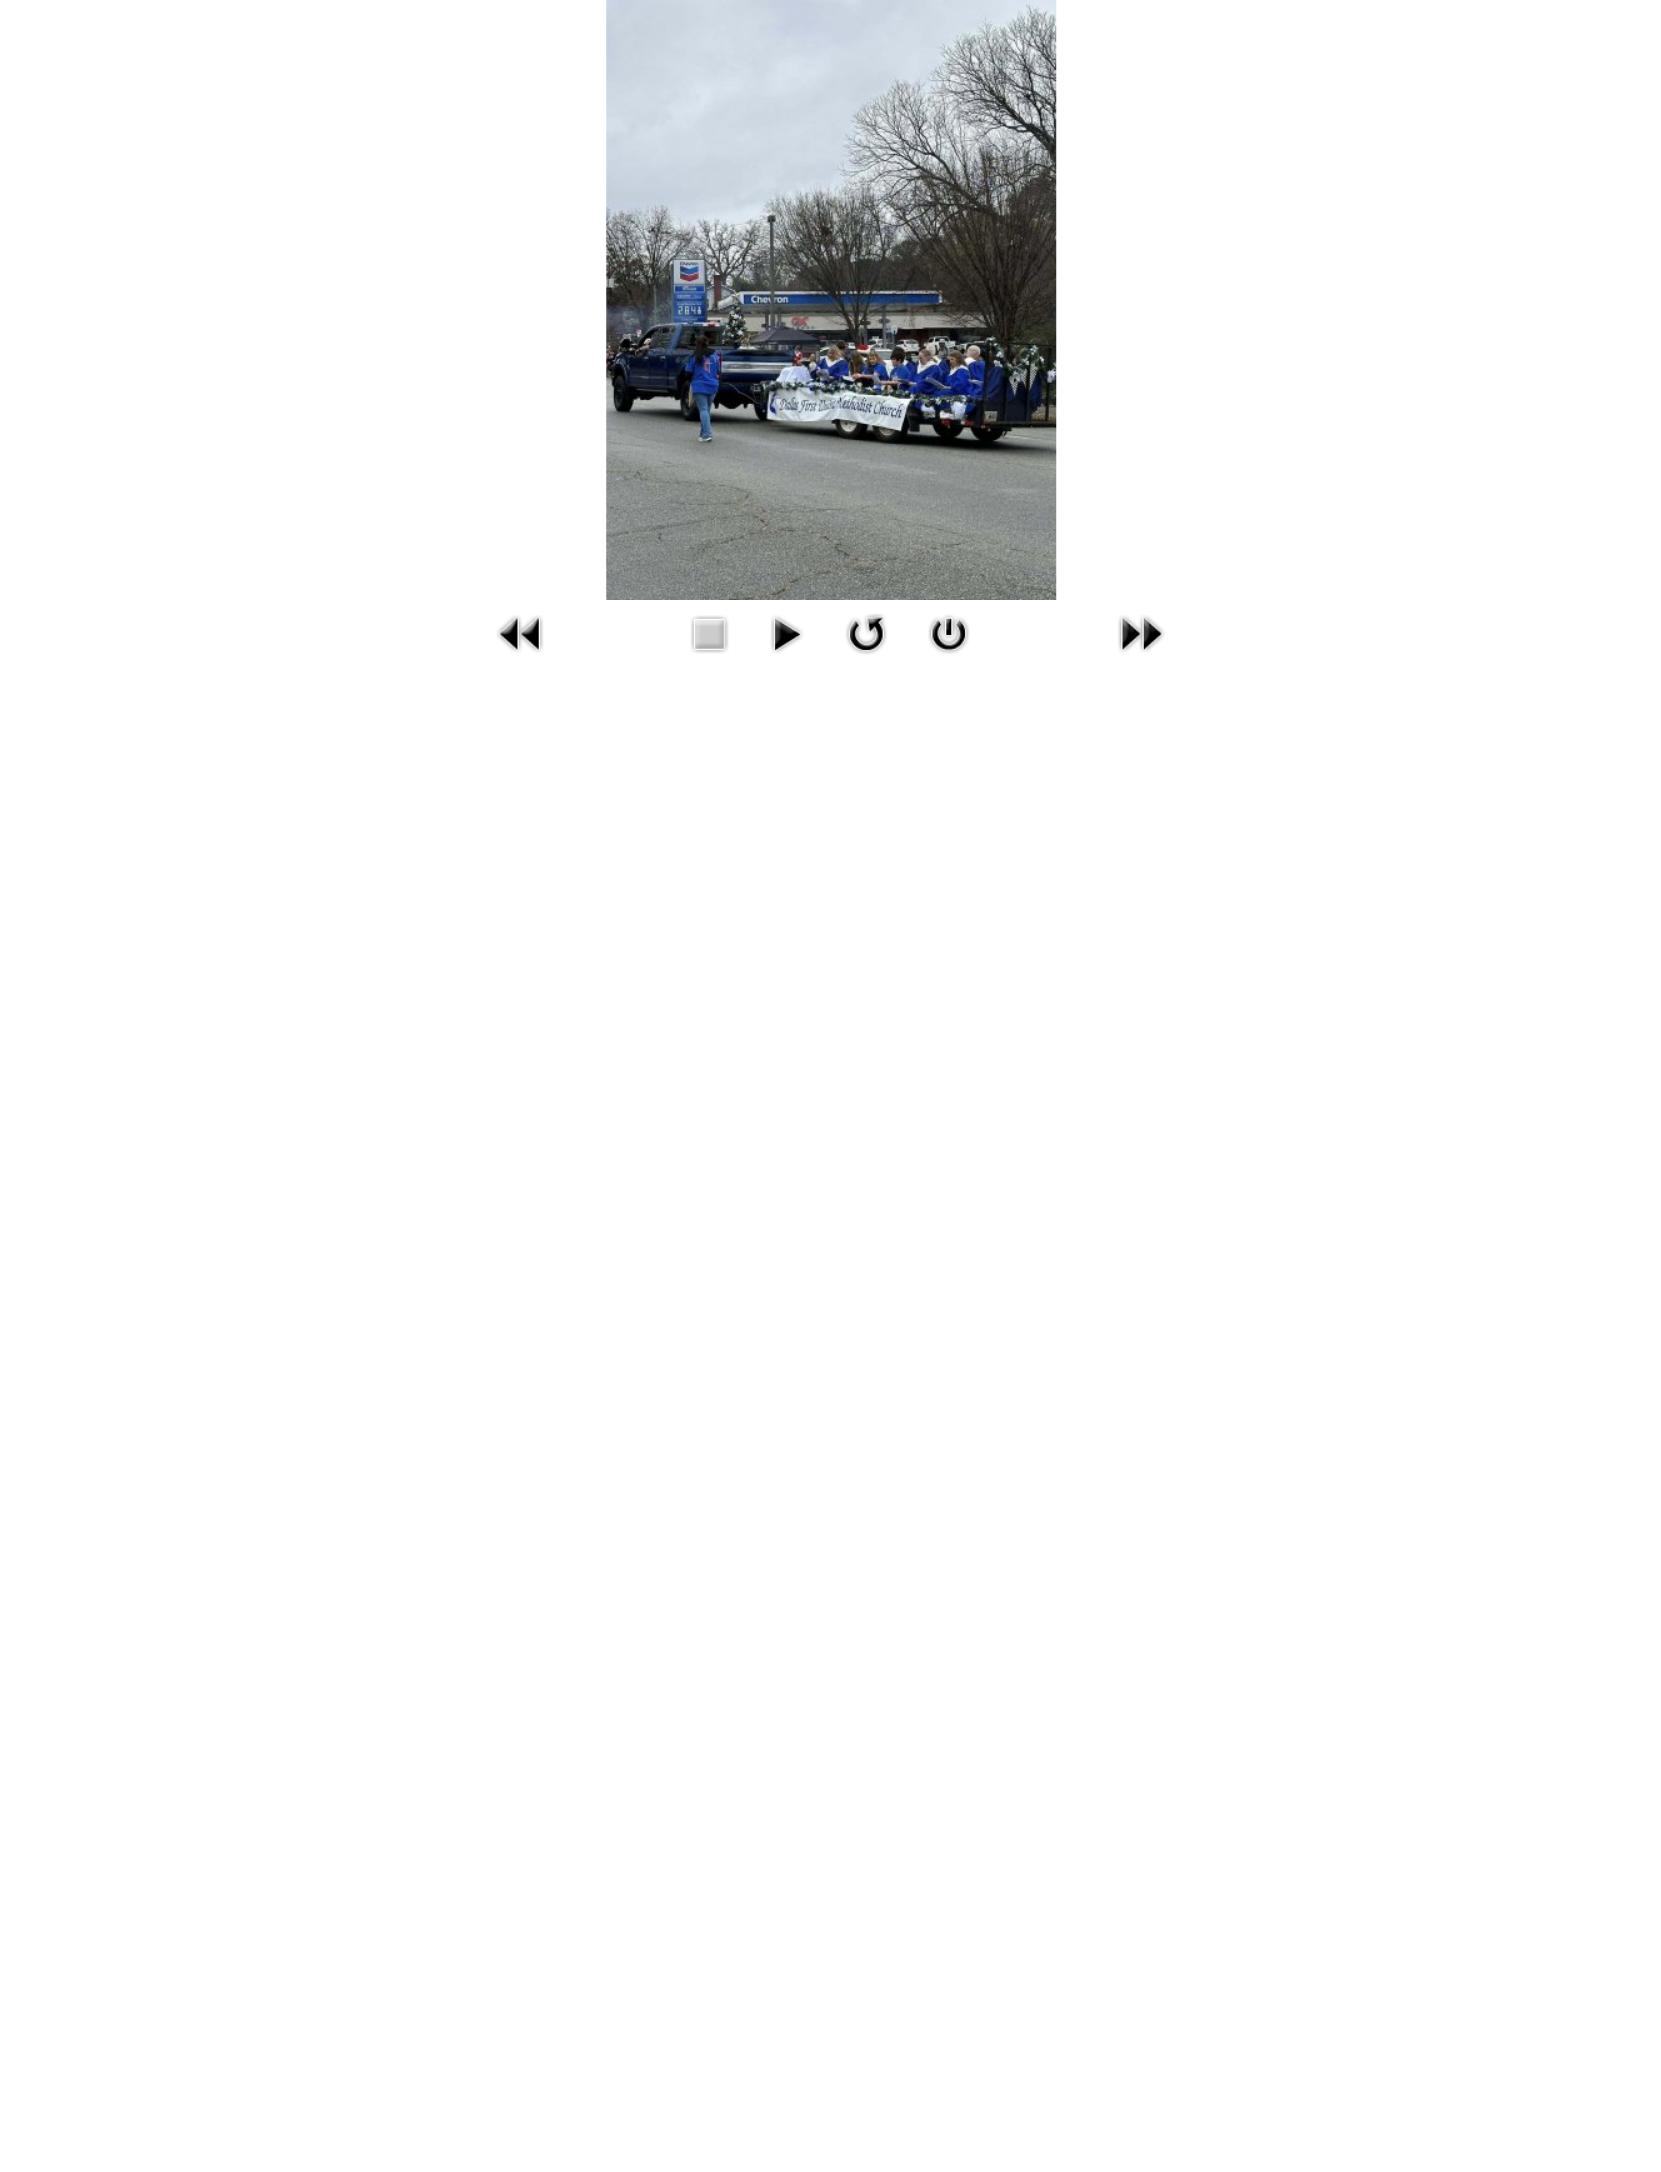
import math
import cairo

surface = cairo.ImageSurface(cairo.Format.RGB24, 1661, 2172)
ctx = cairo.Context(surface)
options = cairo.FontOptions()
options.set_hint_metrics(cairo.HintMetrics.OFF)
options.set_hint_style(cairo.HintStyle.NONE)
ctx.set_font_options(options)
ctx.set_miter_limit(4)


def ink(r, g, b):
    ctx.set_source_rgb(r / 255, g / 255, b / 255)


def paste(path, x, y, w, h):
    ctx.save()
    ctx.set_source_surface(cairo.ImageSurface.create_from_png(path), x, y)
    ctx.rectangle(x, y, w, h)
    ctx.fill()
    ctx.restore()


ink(255, 255, 255)
ctx.paint()
paste("pic1.png", 606, 0, 451, 600)
paste("pic2.png", 496, 615, 48, 38)
paste("pic3.png", 690, 615, 39, 39)
paste("pic4.png", 770, 615, 34, 39)
paste("pic5.png", 845, 613, 43, 42)
paste("pic6.png", 928, 614, 42, 40)
paste("pic7.png", 1117, 615, 48, 38)
surface.write_to_png("screenshot.png")
